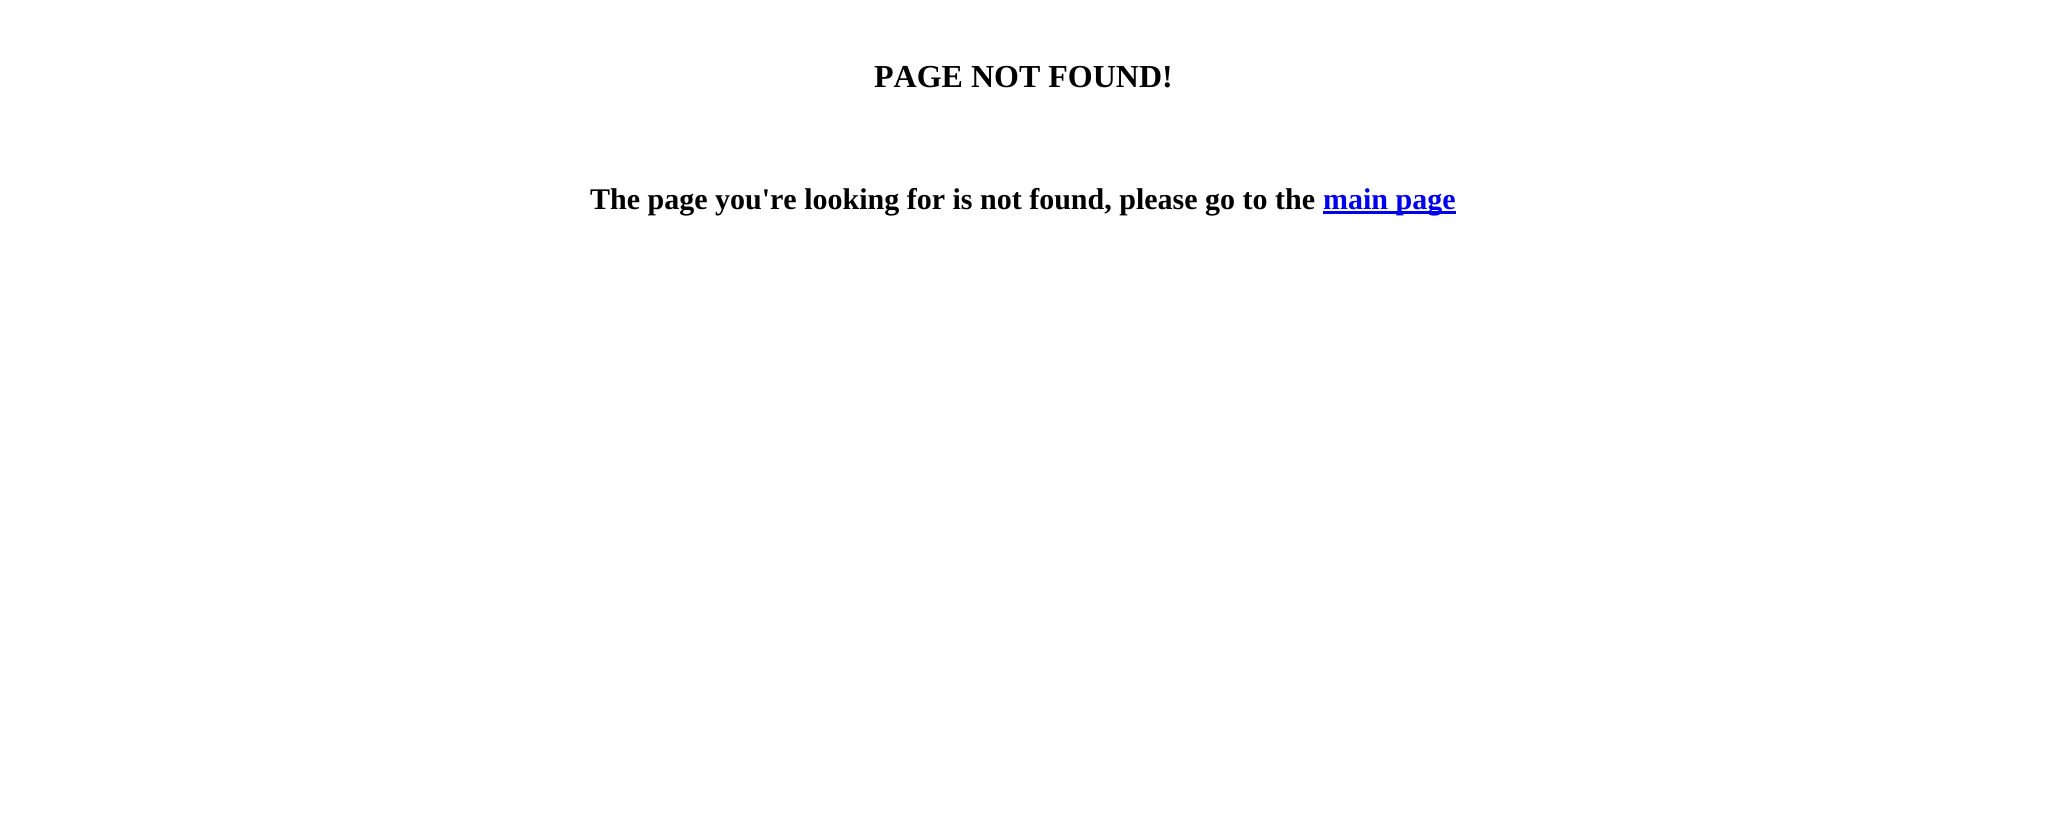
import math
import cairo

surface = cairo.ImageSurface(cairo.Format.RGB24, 2046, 816)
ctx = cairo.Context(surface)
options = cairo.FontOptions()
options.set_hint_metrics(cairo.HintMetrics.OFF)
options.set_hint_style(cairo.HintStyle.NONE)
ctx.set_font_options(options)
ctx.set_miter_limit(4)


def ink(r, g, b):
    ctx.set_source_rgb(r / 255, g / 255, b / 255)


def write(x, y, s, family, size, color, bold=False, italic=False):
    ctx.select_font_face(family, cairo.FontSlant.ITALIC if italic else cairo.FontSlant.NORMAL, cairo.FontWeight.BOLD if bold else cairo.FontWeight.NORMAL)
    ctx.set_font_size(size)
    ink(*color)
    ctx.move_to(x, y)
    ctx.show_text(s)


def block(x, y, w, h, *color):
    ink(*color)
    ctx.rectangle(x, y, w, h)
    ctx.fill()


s1 = dict(family="Liberation Serif", size=32, color=(0, 0, 0), bold=True)
s2 = dict(family="Liberation Serif", size=30, color=(0, 0, 0), bold=True)
s3 = dict(family="Liberation Serif", size=30, color=(0, 0, 238), bold=True)

ink(255, 255, 255)
ctx.paint()
write(874, 87, "PAGE NOT FOUND!", **s1)
write(590, 209, "The page you're looking for is not found, please go to the", **s2)
block(1323, 211, 133, 3, 0, 0, 238)
write(1323, 209, "main page", **s3)
surface.write_to_png("screenshot.png")
